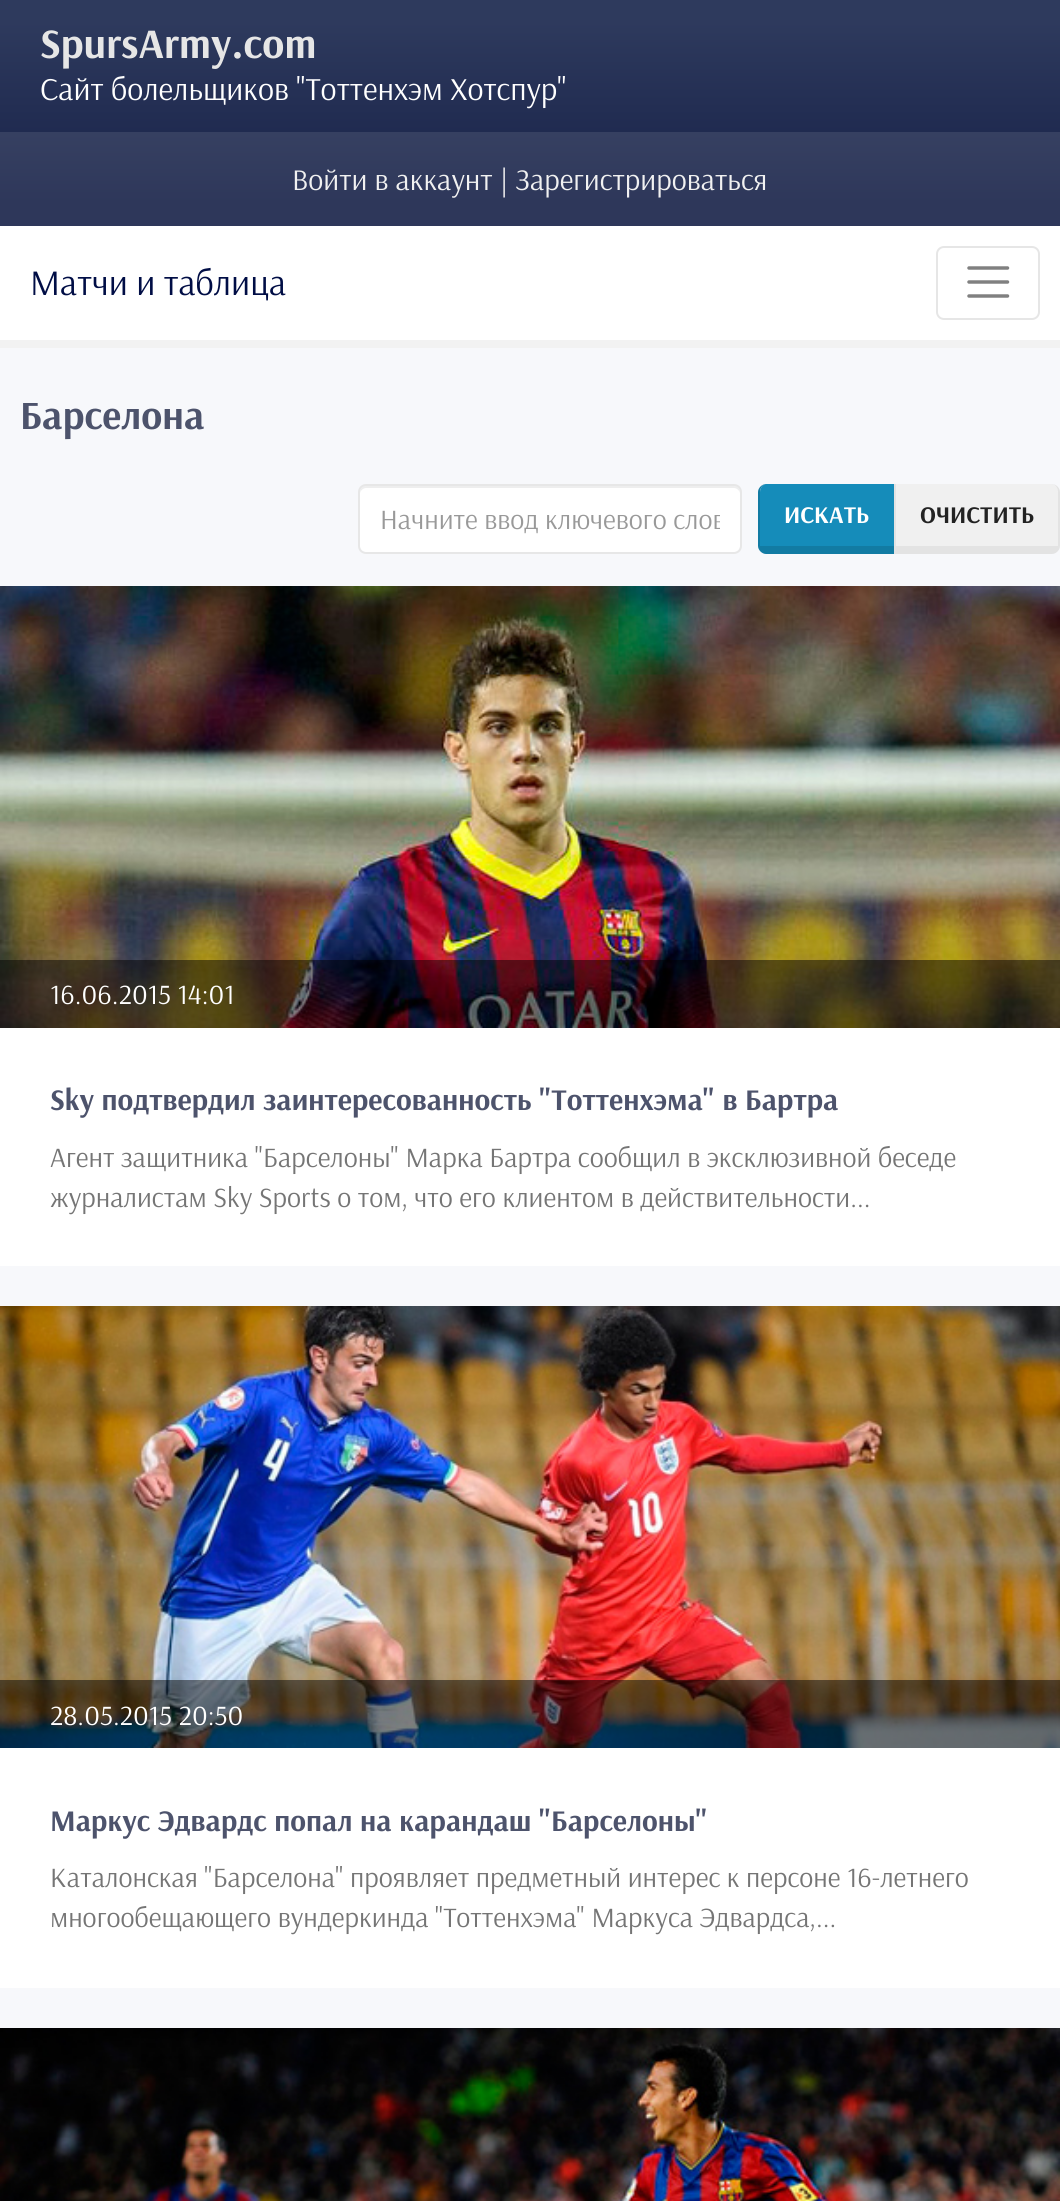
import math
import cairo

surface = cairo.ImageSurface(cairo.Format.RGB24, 1060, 2201)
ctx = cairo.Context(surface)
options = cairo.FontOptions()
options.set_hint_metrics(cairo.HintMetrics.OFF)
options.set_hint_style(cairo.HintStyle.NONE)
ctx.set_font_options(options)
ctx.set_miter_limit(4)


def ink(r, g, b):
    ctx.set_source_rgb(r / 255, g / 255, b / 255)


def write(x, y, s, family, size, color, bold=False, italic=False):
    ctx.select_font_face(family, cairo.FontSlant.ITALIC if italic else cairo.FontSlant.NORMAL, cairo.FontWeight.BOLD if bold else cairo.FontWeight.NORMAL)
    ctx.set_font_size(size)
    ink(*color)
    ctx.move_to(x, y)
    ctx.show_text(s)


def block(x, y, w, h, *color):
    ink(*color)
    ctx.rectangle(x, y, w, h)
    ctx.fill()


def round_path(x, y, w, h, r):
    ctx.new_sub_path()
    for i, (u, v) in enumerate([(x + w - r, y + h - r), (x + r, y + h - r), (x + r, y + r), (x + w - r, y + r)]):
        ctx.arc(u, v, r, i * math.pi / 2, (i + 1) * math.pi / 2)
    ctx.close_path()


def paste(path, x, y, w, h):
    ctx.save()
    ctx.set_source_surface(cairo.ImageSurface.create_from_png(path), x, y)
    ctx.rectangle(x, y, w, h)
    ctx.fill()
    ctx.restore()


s1 = dict(family="Arsenal", size=42, color=(230, 230, 230), bold=True)
s2 = dict(family="Arsenal", size=32, color=(255, 255, 255))
s3 = dict(family="Arsenal", size=30, color=(241, 241, 241))
s4 = dict(family="Arsenal", size=36, color=(0, 13, 69))
s5 = dict(family="Arsenal", size=40, color=(77, 83, 108), bold=True)
s6 = dict(family="Arsenal", size=28, color=(153, 153, 153))
s7 = dict(family="Arsenal", size=24, color=(255, 255, 255), bold=True)
s8 = dict(family="Arsenal", size=24, color=(34, 34, 34), bold=True)
s9 = dict(family="Arsenal", size=28, color=(255, 255, 255))
s10 = dict(family="Arsenal", size=30, color=(77, 83, 108), bold=True)
s11 = dict(family="Arsenal", size=28, color=(117, 117, 117))

ink(247, 248, 251)
ctx.paint()
gradient = cairo.LinearGradient(530, 0, 530, 226)
gradient.add_color_stop_rgba(0.1, 0.18, 0.227, 0.365, 1)
gradient.add_color_stop_rgba(0.9, 0.09, 0.129, 0.282, 1)
ctx.set_source(gradient)
ctx.rectangle(0, 0, 1060, 132)
ctx.fill()
gradient = cairo.LinearGradient(530, 0, 530, 226)
gradient.add_color_stop_rgba(0.1, 0.263, 0.306, 0.427, 1)
gradient.add_color_stop_rgba(0.9, 0.18, 0.216, 0.353, 1)
ctx.set_source(gradient)
ctx.rectangle(0, 132, 1060, 94)
ctx.fill()
write(40, 58, "SpursArmy.com", **s1)
write(40, 100, "Сайт болельщиков \"Тоттенхэм Хотспур\"", **s2)
write(292, 190, "Войти в аккаунт | Зарегистрироваться", **s3)
block(0, 226, 1060, 114, 255, 255, 255)
block(0, 340, 1060, 8, 242, 242, 242)
write(30, 295, "Матчи и таблица", **s4)
round_path(937, 247, 102, 72, 7)
ink(230, 230, 230)
ctx.stroke()
ctx.new_path()
ctx.move_to(969, 268)
ctx.line_to(1007.5, 268)
ctx.move_to(969, 282)
ctx.line_to(1007.5, 282)
ctx.move_to(969, 296)
ctx.line_to(1007.5, 296)
ink(128, 128, 128)
ctx.set_line_width(3.5)
ctx.set_line_cap(cairo.LineCap.ROUND)
ctx.stroke()
write(20, 429, "Барселона", **s5)
ink(255, 255, 255)
round_path(360, 486, 380, 66, 6)
ctx.fill()
ctx.set_source_rgba(0, 0, 0, 0.07)
ctx.new_path()
ctx.move_to(366, 488)
ctx.line_to(734, 488)
ctx.curve_to(737, 488, 740, 491, 740, 494)
ctx.curve_to(740, 490, 739, 486, 734, 486)
ctx.line_to(366, 486)
ctx.curve_to(361, 486, 360, 490, 360, 494)
ctx.curve_to(360, 491, 363, 488, 366, 488)
ctx.close_path()
ctx.fill()
round_path(359, 485, 382, 68, 7)
ink(231, 231, 231)
ctx.set_line_width(2)
ctx.set_line_cap(cairo.LineCap.BUTT)
ctx.stroke()
ctx.save()
ctx.rectangle(380, 502, 340, 36)
ctx.clip()
write(380, 529, "Начните ввод ключевого слов", **s6)
ctx.restore()
ink(21, 140, 186)
ctx.new_path()
ctx.move_to(766, 484)
ctx.line_to(894, 484)
ctx.line_to(894, 546)
ctx.line_to(760, 546)
ctx.line_to(760, 492)
ctx.curve_to(760, 488, 763, 484, 766, 484)
ctx.close_path()
ctx.fill()
ink(18, 123, 163)
ctx.set_fill_rule(cairo.FillRule.EVEN_ODD)
ctx.new_path()
ctx.move_to(766, 484)
ctx.line_to(896, 484)
ctx.line_to(896, 554)
ctx.line_to(766, 554)
ctx.curve_to(762, 554, 758, 550, 758, 546)
ctx.line_to(758, 492)
ctx.curve_to(758, 488, 762, 484, 766, 484)
ctx.close_path()
ctx.move_to(766, 484)
ctx.line_to(894, 484)
ctx.line_to(894, 546)
ctx.line_to(760, 546)
ctx.line_to(760, 492)
ctx.curve_to(760, 488, 763, 484, 766, 484)
ctx.close_path()
ctx.fill()
write(784, 523, "ИСКАТЬ", **s7)
ink(240, 240, 240)
ctx.set_fill_rule(cairo.FillRule.WINDING)
ctx.new_path()
ctx.move_to(896, 484)
ctx.line_to(1052, 484)
ctx.curve_to(1055, 484, 1058, 488, 1058, 492)
ctx.line_to(1058, 546)
ctx.line_to(896, 546)
ctx.close_path()
ctx.fill()
ink(227, 227, 227)
ctx.set_fill_rule(cairo.FillRule.EVEN_ODD)
ctx.new_path()
ctx.move_to(894, 484)
ctx.line_to(1052, 484)
ctx.curve_to(1056, 484, 1060, 488, 1060, 492)
ctx.line_to(1060, 546)
ctx.curve_to(1060, 550, 1056, 554, 1052, 554)
ctx.line_to(894, 554)
ctx.close_path()
ctx.move_to(896, 484)
ctx.line_to(1052, 484)
ctx.curve_to(1055, 484, 1058, 488, 1058, 492)
ctx.line_to(1058, 546)
ctx.line_to(896, 546)
ctx.close_path()
ctx.fill()
write(920, 523, "ОЧИСТИТЬ", **s8)
block(0, 1028, 1060, 238, 255, 255, 255)
paste("pic1.png", 0, 586, 1060, 442)
ctx.set_source_rgba(0, 0, 0, 0.5)
ctx.rectangle(0, 960, 1060, 68)
ctx.fill()
write(50, 1004, "16.06.2015 14:01", **s9)
write(50, 1110, "Sky подтвердил заинтересованность \"Тоттенхэма\" в Бартра", **s10)
write(50, 1167, "Агент защитника \"Барселоны\" Марка Бартра сообщил в эксклюзивной беседе", **s11)
write(50, 1207, "журналистам Sky Sports о том, что его клиентом в действительности...", **s11)
block(0, 1748, 1060, 240, 255, 255, 255)
paste("pic2.png", 0, 1306, 1060, 442)
ctx.set_source_rgba(0, 0, 0, 0.5)
ctx.rectangle(0, 1680, 1060, 68)
ctx.fill()
write(50, 1725, "28.05.2015 20:50", **s9)
write(50, 1831, "Маркус Эдвардс попал на карандаш \"Барселоны\"", **s10)
write(50, 1887, "Каталонская \"Барселона\" проявляет предметный интерес к персоне 16-летнего", **s11)
write(50, 1927, "многообещающего вундеркинда \"Тоттенхэма\" Маркуса Эдвардса,...", **s11)
paste("pic3.png", 0, 2028, 1060, 173)
surface.write_to_png("screenshot.png")
